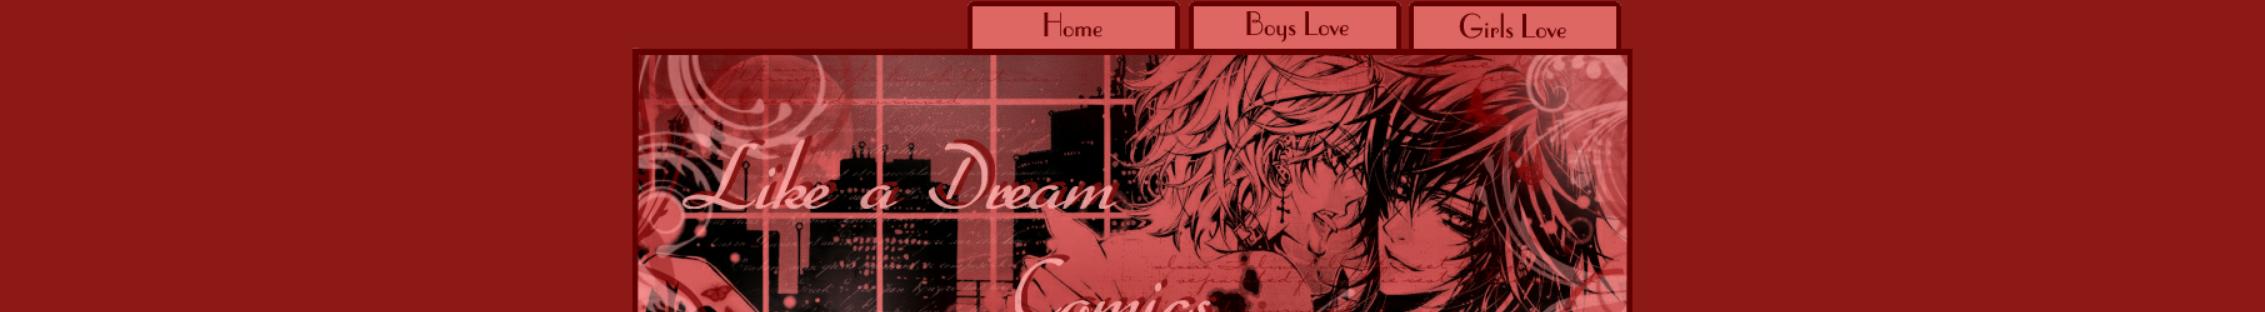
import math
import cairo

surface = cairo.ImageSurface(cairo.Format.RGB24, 2265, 312)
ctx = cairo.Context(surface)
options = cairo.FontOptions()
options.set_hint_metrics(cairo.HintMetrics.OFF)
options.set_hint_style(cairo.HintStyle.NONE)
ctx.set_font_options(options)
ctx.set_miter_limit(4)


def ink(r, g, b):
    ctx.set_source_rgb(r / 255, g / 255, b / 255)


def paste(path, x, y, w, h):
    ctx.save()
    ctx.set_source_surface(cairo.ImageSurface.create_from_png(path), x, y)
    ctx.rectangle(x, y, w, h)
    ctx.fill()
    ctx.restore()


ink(140, 25, 22)
ctx.paint()
paste("pic1.png", 632, 1, 1001, 311)
surface.write_to_png("screenshot.png")
